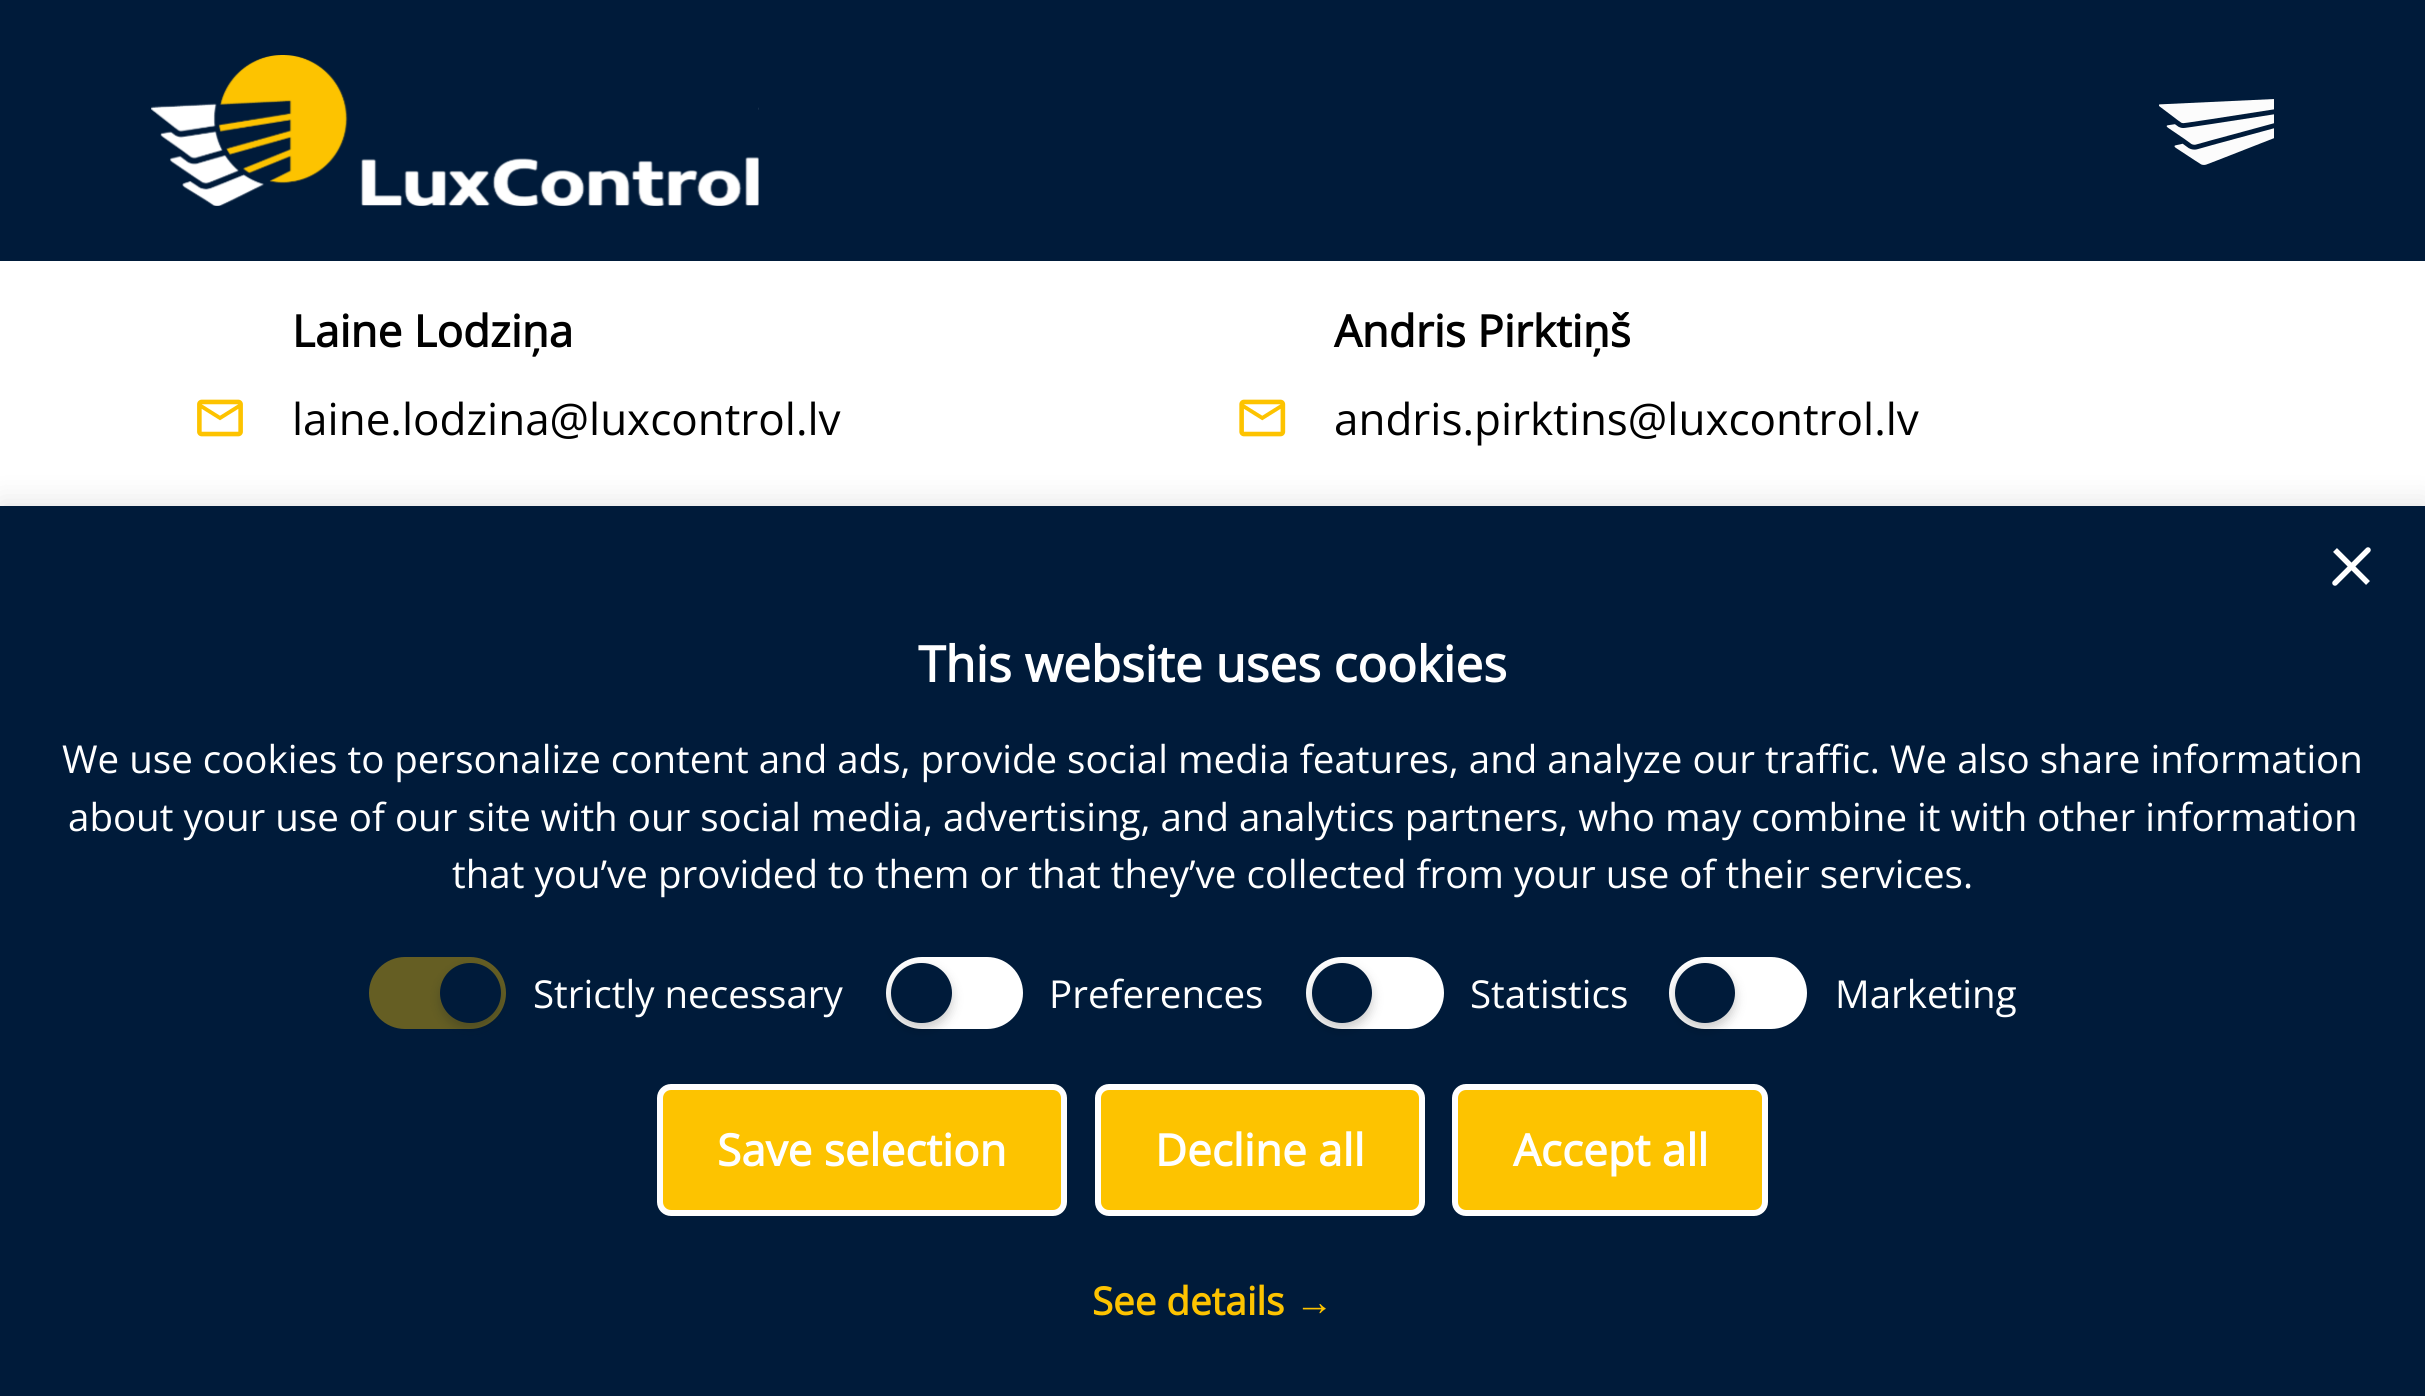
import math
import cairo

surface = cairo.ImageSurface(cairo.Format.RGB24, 2425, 1396)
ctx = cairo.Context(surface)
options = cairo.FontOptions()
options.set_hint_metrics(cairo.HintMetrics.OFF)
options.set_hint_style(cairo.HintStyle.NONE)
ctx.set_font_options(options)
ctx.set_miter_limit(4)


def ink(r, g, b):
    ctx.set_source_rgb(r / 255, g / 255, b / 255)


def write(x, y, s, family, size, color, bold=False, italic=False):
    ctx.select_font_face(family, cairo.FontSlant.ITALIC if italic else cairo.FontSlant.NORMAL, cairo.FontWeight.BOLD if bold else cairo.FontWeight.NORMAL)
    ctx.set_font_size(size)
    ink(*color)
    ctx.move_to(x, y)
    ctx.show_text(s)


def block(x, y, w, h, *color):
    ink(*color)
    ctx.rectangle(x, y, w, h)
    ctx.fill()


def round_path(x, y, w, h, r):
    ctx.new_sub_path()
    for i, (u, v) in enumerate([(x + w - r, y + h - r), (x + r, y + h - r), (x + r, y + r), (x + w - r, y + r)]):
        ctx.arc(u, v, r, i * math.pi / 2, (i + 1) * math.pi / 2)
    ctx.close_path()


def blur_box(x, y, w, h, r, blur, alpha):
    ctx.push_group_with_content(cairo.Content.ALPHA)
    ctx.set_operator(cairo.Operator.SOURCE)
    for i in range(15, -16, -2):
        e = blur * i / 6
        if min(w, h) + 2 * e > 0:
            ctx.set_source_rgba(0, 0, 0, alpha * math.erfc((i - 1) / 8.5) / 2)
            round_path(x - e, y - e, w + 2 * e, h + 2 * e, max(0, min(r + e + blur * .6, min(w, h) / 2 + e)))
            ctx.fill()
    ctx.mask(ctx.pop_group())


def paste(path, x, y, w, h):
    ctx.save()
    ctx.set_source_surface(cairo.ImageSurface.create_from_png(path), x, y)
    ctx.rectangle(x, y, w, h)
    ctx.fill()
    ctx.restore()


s1 = dict(family="Open Sans", size=44, color=(0, 0, 0), bold=True)
s2 = dict(family="Open Sans", size=44, color=(0, 0, 0))
s3 = dict(family="Open Sans", size=49.5, color=(255, 255, 255), bold=True)
s4 = dict(family="Open Sans", size=38.5, color=(255, 255, 255))
s5 = dict(family="Open Sans", size=44, color=(255, 255, 255), bold=True)
s6 = dict(family="Open Sans", size=38.5, color=(253, 195, 0), bold=True)
s7 = dict(family="Liberation Sans", size=38.5, color=(253, 195, 0), bold=True)

ink(255, 255, 255)
ctx.paint()
block(0, 0, 2425, 261, 0, 27, 58)
paste("pic1.png", 151, 55, 608, 151)
paste("pic2.png", 2159, 99, 115, 66)
write(292, 347, "Laine Lodziņa", **s1)
paste("pic3.png", 197, 399, 46, 38)
write(292, 435, "laine.lodzina@luxcontrol.lv", **s2)
write(1334, 347, "Andris Pirktiņš", **s1)
paste("pic4.png", 1239, 399, 47, 38)
write(1334, 435, "andris.pirktins@luxcontrol.lv", **s2)
ink(0, 0, 0)
blur_box(0, 501, 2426, 891, 0, 14, 0.1)
block(0, 506, 2425, 890, 0, 27, 58)
ctx.new_path()
ctx.move_to(2368, 550)
ctx.line_to(2335, 583)
ink(255, 255, 255)
ctx.set_line_width(5.5)
ctx.set_line_cap(cairo.LineCap.ROUND)
ctx.set_line_join(cairo.LineJoin.ROUND)
ctx.stroke()
ctx.new_path()
ctx.move_to(2335, 550)
ctx.line_to(2368, 583)
ctx.set_line_cap(cairo.LineCap.BUTT)
ctx.stroke()
write(918, 682, "This website uses cookies", **s3)
write(62, 773, "We use cookies to personalize content and ads, provide social media features, and analyze our traffic. We also share information", **s4)
write(68, 831, "about your use of our site with our social media, advertising, and analytics partners, who may combine it with other information", **s4)
write(452, 888, "that you’ve provided to them or that they’ve collected from your use of their services.", **s4)
ink(101, 94, 35)
round_path(369, 957, 137, 72, 36)
ctx.fill()
ink(0, 16, 35)
blur_box(440, 968, 61, 61, 30.5, 5.5, 0.2)
ink(0, 27, 58)
round_path(440, 963, 61, 60, 30)
ctx.fill()
write(533, 1008, "Strictly necessary", **s4)
round_path(886, 957, 137, 72, 36)
ctx.fill()
ink(0, 0, 0)
blur_box(891, 968, 61, 61, 30.5, 5.5, 0.2)
ink(0, 27, 58)
round_path(891, 963, 61, 60, 30)
ctx.fill()
write(1049, 1008, "Preferences", **s4)
round_path(1306, 957, 138, 72, 36)
ctx.fill()
ink(0, 0, 0)
blur_box(1312, 968, 60, 61, 30, 5.5, 0.2)
ink(0, 27, 58)
ctx.arc(1342, 993, 30, 0, 2 * math.pi)
ctx.fill()
write(1470, 1008, "Statistics", **s4)
round_path(1669, 957, 138, 72, 36)
ctx.fill()
ink(0, 0, 0)
blur_box(1675, 968, 60, 61, 30, 5.5, 0.2)
ink(0, 27, 58)
ctx.arc(1705, 993, 30, 0, 2 * math.pi)
ctx.fill()
write(1835, 1008, "Marketing", **s4)
ink(253, 195, 0)
round_path(660, 1087, 404, 126, 11)
ctx.fill_preserve()
ink(254, 254, 254)
ctx.set_line_width(6)
ctx.set_line_join(cairo.LineJoin.MITER)
ctx.stroke()
write(717, 1166, "Save selection", **s5)
ink(253, 195, 0)
round_path(1098, 1087, 324, 126, 11)
ctx.fill_preserve()
ink(255, 255, 255)
ctx.stroke()
write(1155, 1166, "Decline all", **s5)
ink(253, 195, 0)
round_path(1455, 1087, 310, 126, 11)
ctx.fill_preserve()
ink(255, 255, 255)
ctx.stroke()
write(1513, 1166, "Accept all", **s5)
write(1092, 1315, "See details", **s6)
write(1295, 1315, "→", **s7)
surface.write_to_png("screenshot.png")
